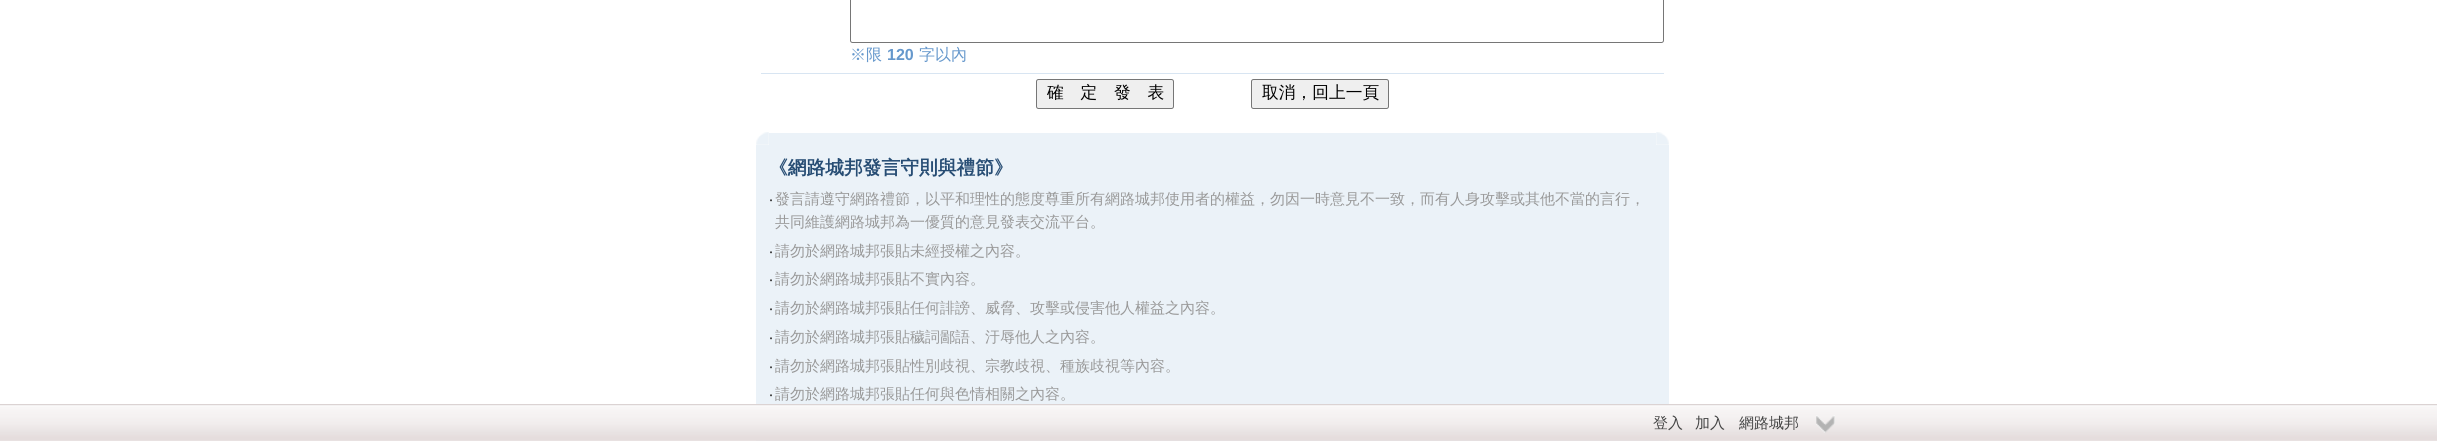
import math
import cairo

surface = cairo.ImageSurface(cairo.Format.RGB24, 2437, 441)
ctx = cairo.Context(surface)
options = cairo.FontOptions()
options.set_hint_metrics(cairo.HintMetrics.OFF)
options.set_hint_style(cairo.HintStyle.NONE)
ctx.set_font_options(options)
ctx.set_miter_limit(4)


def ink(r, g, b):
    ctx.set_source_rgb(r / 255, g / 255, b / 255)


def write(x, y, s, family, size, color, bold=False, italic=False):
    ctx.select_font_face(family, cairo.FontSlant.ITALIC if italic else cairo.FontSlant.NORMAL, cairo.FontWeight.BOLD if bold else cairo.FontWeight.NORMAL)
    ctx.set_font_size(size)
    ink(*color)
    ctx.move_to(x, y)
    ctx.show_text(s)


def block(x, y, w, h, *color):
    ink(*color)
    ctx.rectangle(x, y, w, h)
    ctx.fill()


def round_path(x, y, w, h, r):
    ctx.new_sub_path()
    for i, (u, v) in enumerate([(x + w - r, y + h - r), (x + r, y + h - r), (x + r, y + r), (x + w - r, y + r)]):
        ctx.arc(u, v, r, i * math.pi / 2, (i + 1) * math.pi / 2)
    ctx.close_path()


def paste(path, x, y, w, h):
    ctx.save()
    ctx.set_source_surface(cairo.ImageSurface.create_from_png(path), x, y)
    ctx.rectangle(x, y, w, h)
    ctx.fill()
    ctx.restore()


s1 = dict(family="WenQuanYi Zen Hei Medium", size=16, color=(102, 152, 204))
s2 = dict(family="Liberation Sans", size=16, color=(102, 152, 204), bold=True)
s3 = dict(family="WenQuanYi Zen Hei Medium", size=16.75, color=(0, 0, 0))
s4 = dict(family="WenQuanYi Zen Hei", size=18.75, color=(39, 77, 116), bold=True)
s5 = dict(family="Noto Sans", size=15, color=(51, 51, 51))
s6 = dict(family="WenQuanYi Zen Hei Medium", size=15, color=(153, 153, 153))
s7 = dict(family="WenQuanYi Zen Hei Medium", size=15, color=(68, 68, 68))

ink(255, 255, 255)
ctx.paint()
round_path(850.5, -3.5, 813, 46, 2)
ink(118, 118, 118)
ctx.set_line_width(1)
ctx.stroke()
write(850, 60, "※限", **s1)
write(887, 60, "120", **s2)
write(919, 60, "字以內", **s1)
block(761, 73, 903, 1, 216, 229, 242)
ink(239, 239, 239)
round_path(1036.5, 79.5, 137, 29, 2)
ctx.fill_preserve()
ink(118, 118, 118)
ctx.stroke()
write(1047, 98, "確　定　發　表", **s3)
ink(239, 239, 239)
round_path(1251.5, 79.5, 137, 29, 2)
ctx.fill_preserve()
ink(118, 118, 118)
ctx.stroke()
write(1262, 98, "取消，回上一頁", **s3)
paste("pic1.png", 756, 132, 13, 13)
block(769, 133, 887, 12, 235, 242, 248)
paste("pic2.png", 1656, 132, 13, 13)
block(756, 145, 913, 296, 235, 242, 248)
write(769, 174, "《網路城邦發言守則與禮節》", **s4)
write(769, 204, "‧", **s5)
write(775, 204, "發言請遵守網路禮節，以平和理性的態度尊重所有網路城邦使用者的權益，勿因一時意見不一致，而有人身攻擊或其他不當的言行，", **s6)
write(775, 227, "共同維護網路城邦為一優質的意見發表交流平台。", **s6)
write(769, 256, "‧", **s5)
write(775, 256, "請勿於網路城邦張貼未經授權之內容。", **s6)
write(769, 284, "‧", **s5)
write(775, 284, "請勿於網路城邦張貼不實內容。", **s6)
write(769, 313, "‧", **s5)
write(775, 313, "請勿於網路城邦張貼任何誹謗、威脅、攻擊或侵害他人權益之內容。", **s6)
write(769, 342, "‧", **s5)
write(775, 342, "請勿於網路城邦張貼穢詞鄙語、汙辱他人之內容。", **s6)
write(769, 371, "‧", **s5)
write(775, 371, "請勿於網路城邦張貼性別歧視、宗教歧視、種族歧視等內容。", **s6)
write(769, 399, "‧", **s5)
write(775, 399, "請勿於網路城邦張貼任何與色情相關之內容。", **s6)
paste("pic3.png", 0, 404, 2437, 37)
write(1653, 428, "登入", **s7)
write(1695, 428, "加入", **s7)
write(1739, 428, "網路城邦", **s7)
paste("pic4.png", 1816, 415, 19, 18)
surface.write_to_png("screenshot.png")
